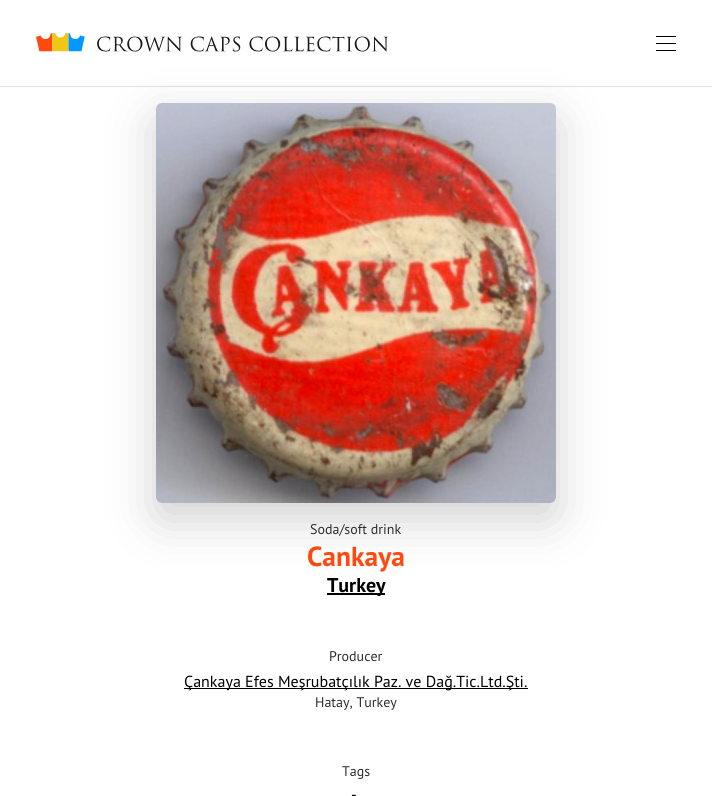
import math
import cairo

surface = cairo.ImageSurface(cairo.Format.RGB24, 712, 796)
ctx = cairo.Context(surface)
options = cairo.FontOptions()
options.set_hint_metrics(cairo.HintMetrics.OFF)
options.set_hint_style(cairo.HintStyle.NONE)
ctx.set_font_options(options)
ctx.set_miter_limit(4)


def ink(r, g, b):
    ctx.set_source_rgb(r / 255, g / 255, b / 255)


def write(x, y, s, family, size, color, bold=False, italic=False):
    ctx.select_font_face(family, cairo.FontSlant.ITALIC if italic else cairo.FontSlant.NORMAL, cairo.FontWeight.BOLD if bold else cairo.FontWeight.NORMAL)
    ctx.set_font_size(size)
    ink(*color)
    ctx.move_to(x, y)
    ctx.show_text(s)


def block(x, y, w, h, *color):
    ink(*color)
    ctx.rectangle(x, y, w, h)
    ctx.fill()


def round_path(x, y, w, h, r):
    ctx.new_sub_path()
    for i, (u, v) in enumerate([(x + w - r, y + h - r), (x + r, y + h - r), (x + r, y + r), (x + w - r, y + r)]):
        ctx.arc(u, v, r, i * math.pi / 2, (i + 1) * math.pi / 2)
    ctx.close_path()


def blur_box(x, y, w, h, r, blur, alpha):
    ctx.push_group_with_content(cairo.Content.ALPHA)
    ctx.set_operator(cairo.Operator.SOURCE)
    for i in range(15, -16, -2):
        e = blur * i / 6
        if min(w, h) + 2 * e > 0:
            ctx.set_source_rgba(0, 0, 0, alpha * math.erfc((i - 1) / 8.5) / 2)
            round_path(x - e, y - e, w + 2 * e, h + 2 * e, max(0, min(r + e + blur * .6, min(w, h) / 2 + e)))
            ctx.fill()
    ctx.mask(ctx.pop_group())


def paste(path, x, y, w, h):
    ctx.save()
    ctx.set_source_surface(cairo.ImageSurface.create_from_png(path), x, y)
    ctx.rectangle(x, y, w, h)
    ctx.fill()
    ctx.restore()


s1 = dict(family="PT Sans", size=14, color=(43, 47, 50))
s2 = dict(family="PT Sans", size=27.5, color=(255, 73, 15), bold=True)
s3 = dict(family="PT Sans", size=20, color=(0, 0, 0), bold=True)
s4 = dict(family="PT Sans", size=16, color=(0, 0, 0))

ink(255, 255, 255)
ctx.paint()
block(0, 86, 712, 1, 222, 226, 230)
paste("pic1.png", 36, 33, 352, 19)
block(656, 36, 20, 1, 0, 0, 0)
block(656, 43, 20, 1, 0, 0, 0)
block(656, 50, 20, 1, 0, 0, 0)
ink(0, 0, 0)
blur_box(156, 119, 400, 400, 6, 24, 0.18)
paste("pic2.png", 156, 103, 400, 400)
write(310, 534, "Soda/soft drink", **s1)
write(307, 566, "Cankaya", **s2)
block(327, 593, 58, 2, 0, 0, 0)
write(327, 592, "Turkey", **s3)
write(329, 661, "Producer", **s1)
block(184, 688, 344, 1, 0, 0, 0)
write(184, 687, "Çankaya Efes Meşrubatçılık Paz. ve Dağ.Tic.Ltd.Şti.", **s4)
write(315, 707, "Hatay, Turkey", **s1)
write(342, 776, "Tags", **s1)
write(351, 800, "-", **s4)
surface.write_to_png("screenshot.png")
